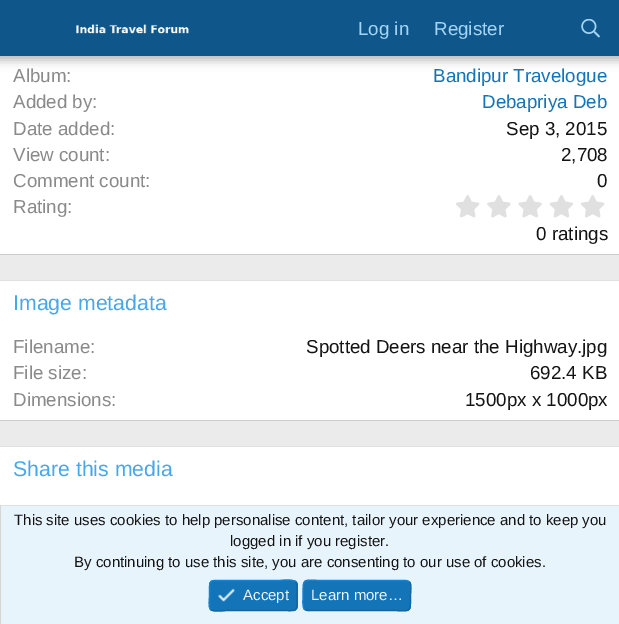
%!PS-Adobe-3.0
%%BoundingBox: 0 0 619 624
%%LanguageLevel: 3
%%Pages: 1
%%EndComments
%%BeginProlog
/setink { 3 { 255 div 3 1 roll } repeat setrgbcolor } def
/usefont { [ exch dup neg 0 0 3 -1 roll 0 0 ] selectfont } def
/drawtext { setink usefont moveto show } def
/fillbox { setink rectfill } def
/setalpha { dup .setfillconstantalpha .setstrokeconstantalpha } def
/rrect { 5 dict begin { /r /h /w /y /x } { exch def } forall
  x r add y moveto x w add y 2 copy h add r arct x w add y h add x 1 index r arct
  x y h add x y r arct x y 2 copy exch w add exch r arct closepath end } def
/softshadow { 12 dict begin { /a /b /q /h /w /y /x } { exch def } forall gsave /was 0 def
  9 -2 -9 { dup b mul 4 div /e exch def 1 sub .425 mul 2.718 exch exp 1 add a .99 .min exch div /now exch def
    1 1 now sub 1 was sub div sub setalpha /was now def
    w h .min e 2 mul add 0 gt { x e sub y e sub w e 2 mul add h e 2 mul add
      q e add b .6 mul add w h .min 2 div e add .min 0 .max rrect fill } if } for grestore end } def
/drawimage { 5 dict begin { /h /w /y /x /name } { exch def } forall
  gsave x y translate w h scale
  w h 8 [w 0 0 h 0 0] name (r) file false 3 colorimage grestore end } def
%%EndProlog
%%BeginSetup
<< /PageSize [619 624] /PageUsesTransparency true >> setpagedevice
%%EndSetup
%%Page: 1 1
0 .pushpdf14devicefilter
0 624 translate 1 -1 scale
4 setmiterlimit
0 0 619 624 235 235 235 fillbox
0 56 619 198 255 255 255 fillbox
0 0 0 setink
-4 -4 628 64 0 5 0.3 softshadow
0 0 619 56 15 87 138 fillbox
(assets/img1.rgb) 76 24 113 10 drawimage
(Log in) 358 35 /LiberationSans-Regular 18.75 163 212 245 drawtext
(Register) 434 35 /LiberationSans-Regular 18.75 163 212 245 drawtext
(assets/img2.rgb) 581 19 19 19 drawimage
0 254 619 1 204 204 204 fillbox
(Album:) 13 82 /LiberationSans-Regular 18.75 138 138 138 drawtext
(Bandipur Travelogue) 433 82 /LiberationSans-Regular 18.75 20 116 184 drawtext
(Added by:) 13 108 /LiberationSans-Regular 18.75 138 138 138 drawtext
(Debapriya Deb) 482 108 /LiberationSans-Regular 18.75 20 116 184 drawtext
(Date added:) 13 135 /LiberationSans-Regular 18.75 138 138 138 drawtext
(Sep 3, 2015) 506 135 /LiberationSans-Regular 18.75 20 20 20 drawtext
(View count:) 13 161 /LiberationSans-Regular 18.75 138 138 138 drawtext
(2,708) 561 161 /LiberationSans-Regular 18.75 20 20 20 drawtext
(Comment count:) 13 187 /LiberationSans-Regular 18.75 138 138 138 drawtext
(0) 597 187 /LiberationSans-Regular 18.75 20 20 20 drawtext
(Rating:) 13 213 /LiberationSans-Regular 18.75 138 138 138 drawtext
(assets/img3.rgb) 456 195 24 23 drawimage
(assets/img4.rgb) 487 195 24 23 drawimage
(assets/img5.rgb) 518 195 24 23 drawimage
(assets/img6.rgb) 549 195 24 23 drawimage
(assets/img3.rgb) 581 195 24 23 drawimage
(0 ratings) 536 240 /LiberationSans-Regular 18.75 20 20 20 drawtext
0 281 619 139 255 255 255 fillbox
0 280 619 1 224 224 224 fillbox
0 420 619 1 204 204 204 fillbox
(Image metadata) 13 310 /LiberationSans-Regular 21.25 71 167 235 drawtext
(Filename:) 13 353 /LiberationSans-Regular 18.75 138 138 138 drawtext
(Spotted Deers near the Highway.jpg) 306 353 /LiberationSans-Regular 18.75 20 20 20 drawtext
(File size:) 13 379 /LiberationSans-Regular 18.75 138 138 138 drawtext
(692.4 KB) 530 379 /LiberationSans-Regular 18.75 20 20 20 drawtext
(Dimensions:) 13 406 /LiberationSans-Regular 18.75 138 138 138 drawtext
(1500px x 1000px) 465 406 /LiberationSans-Regular 18.75 20 20 20 drawtext
0 447 619 58 255 255 255 fillbox
0 446 619 1 224 224 224 fillbox
(Share this media) 13 476 /LiberationSans-Regular 21.25 71 167 235 drawtext
1 506 618 118 232 244 252 fillbox
0 505 619 1 224 224 224 fillbox
0 505 1 119 214 214 214 fillbox
(This site uses cookies to help personalise content, tailor your experience and to keep you) 14 525 /LiberationSans-Regular 15 20 20 20 drawtext
(logged in if you register.) 230 546 /LiberationSans-Regular 15 20 20 20 drawtext
(By continuing to use this site, you are consenting to our use of cookies.) 74 567 /LiberationSans-Regular 15 20 20 20 drawtext
20 116 184 setink
209 580 89 31 5 rrect fill
18 101 161 setink
1.2 setlinewidth
295.5 582 moveto 298 584.5 297 592.5 297 595.5 curveto 297 613.5 298.5 610.5 279.5 610.5 curveto 227 610.5 lineto 225.5 610.5 214 612.5 210.5 609.5 curveto stroke
23 130 207 setink
210.5 609.5 moveto 208 606.5 209.5 599 209.5 595.5 curveto 209.5 578 208 580.5 227 580.5 curveto 279.5 580.5 lineto 280.5 580.5 292.5 578.5 295.5 582 curveto stroke
(assets/img7.rgb) 218 588 17 14 drawimage
(Accept) 243 600 /LiberationSans-Regular 15 232 244 252 drawtext
20 116 184 setink
303 580 108 31 5 rrect fill
18 101 161 setink
409.5 582 moveto 412 584.5 410.5 592.5 410.5 595.5 curveto 410.5 614.5 411.5 610.5 390 610.5 curveto 307.5 610.5 lineto 304.5 609.5 lineto stroke
23 130 207 setink
304.5 609.5 moveto 302 606.5 303 599 303 595.5 curveto 303 576.5 302.5 580.5 324 580.5 curveto 406 580.5 lineto 409.5 582 lineto stroke
(Learn more…) 311 600 /LiberationSans-Regular 15 232 244 252 drawtext
.poppdf14devicefilter showpage
%%EOF
